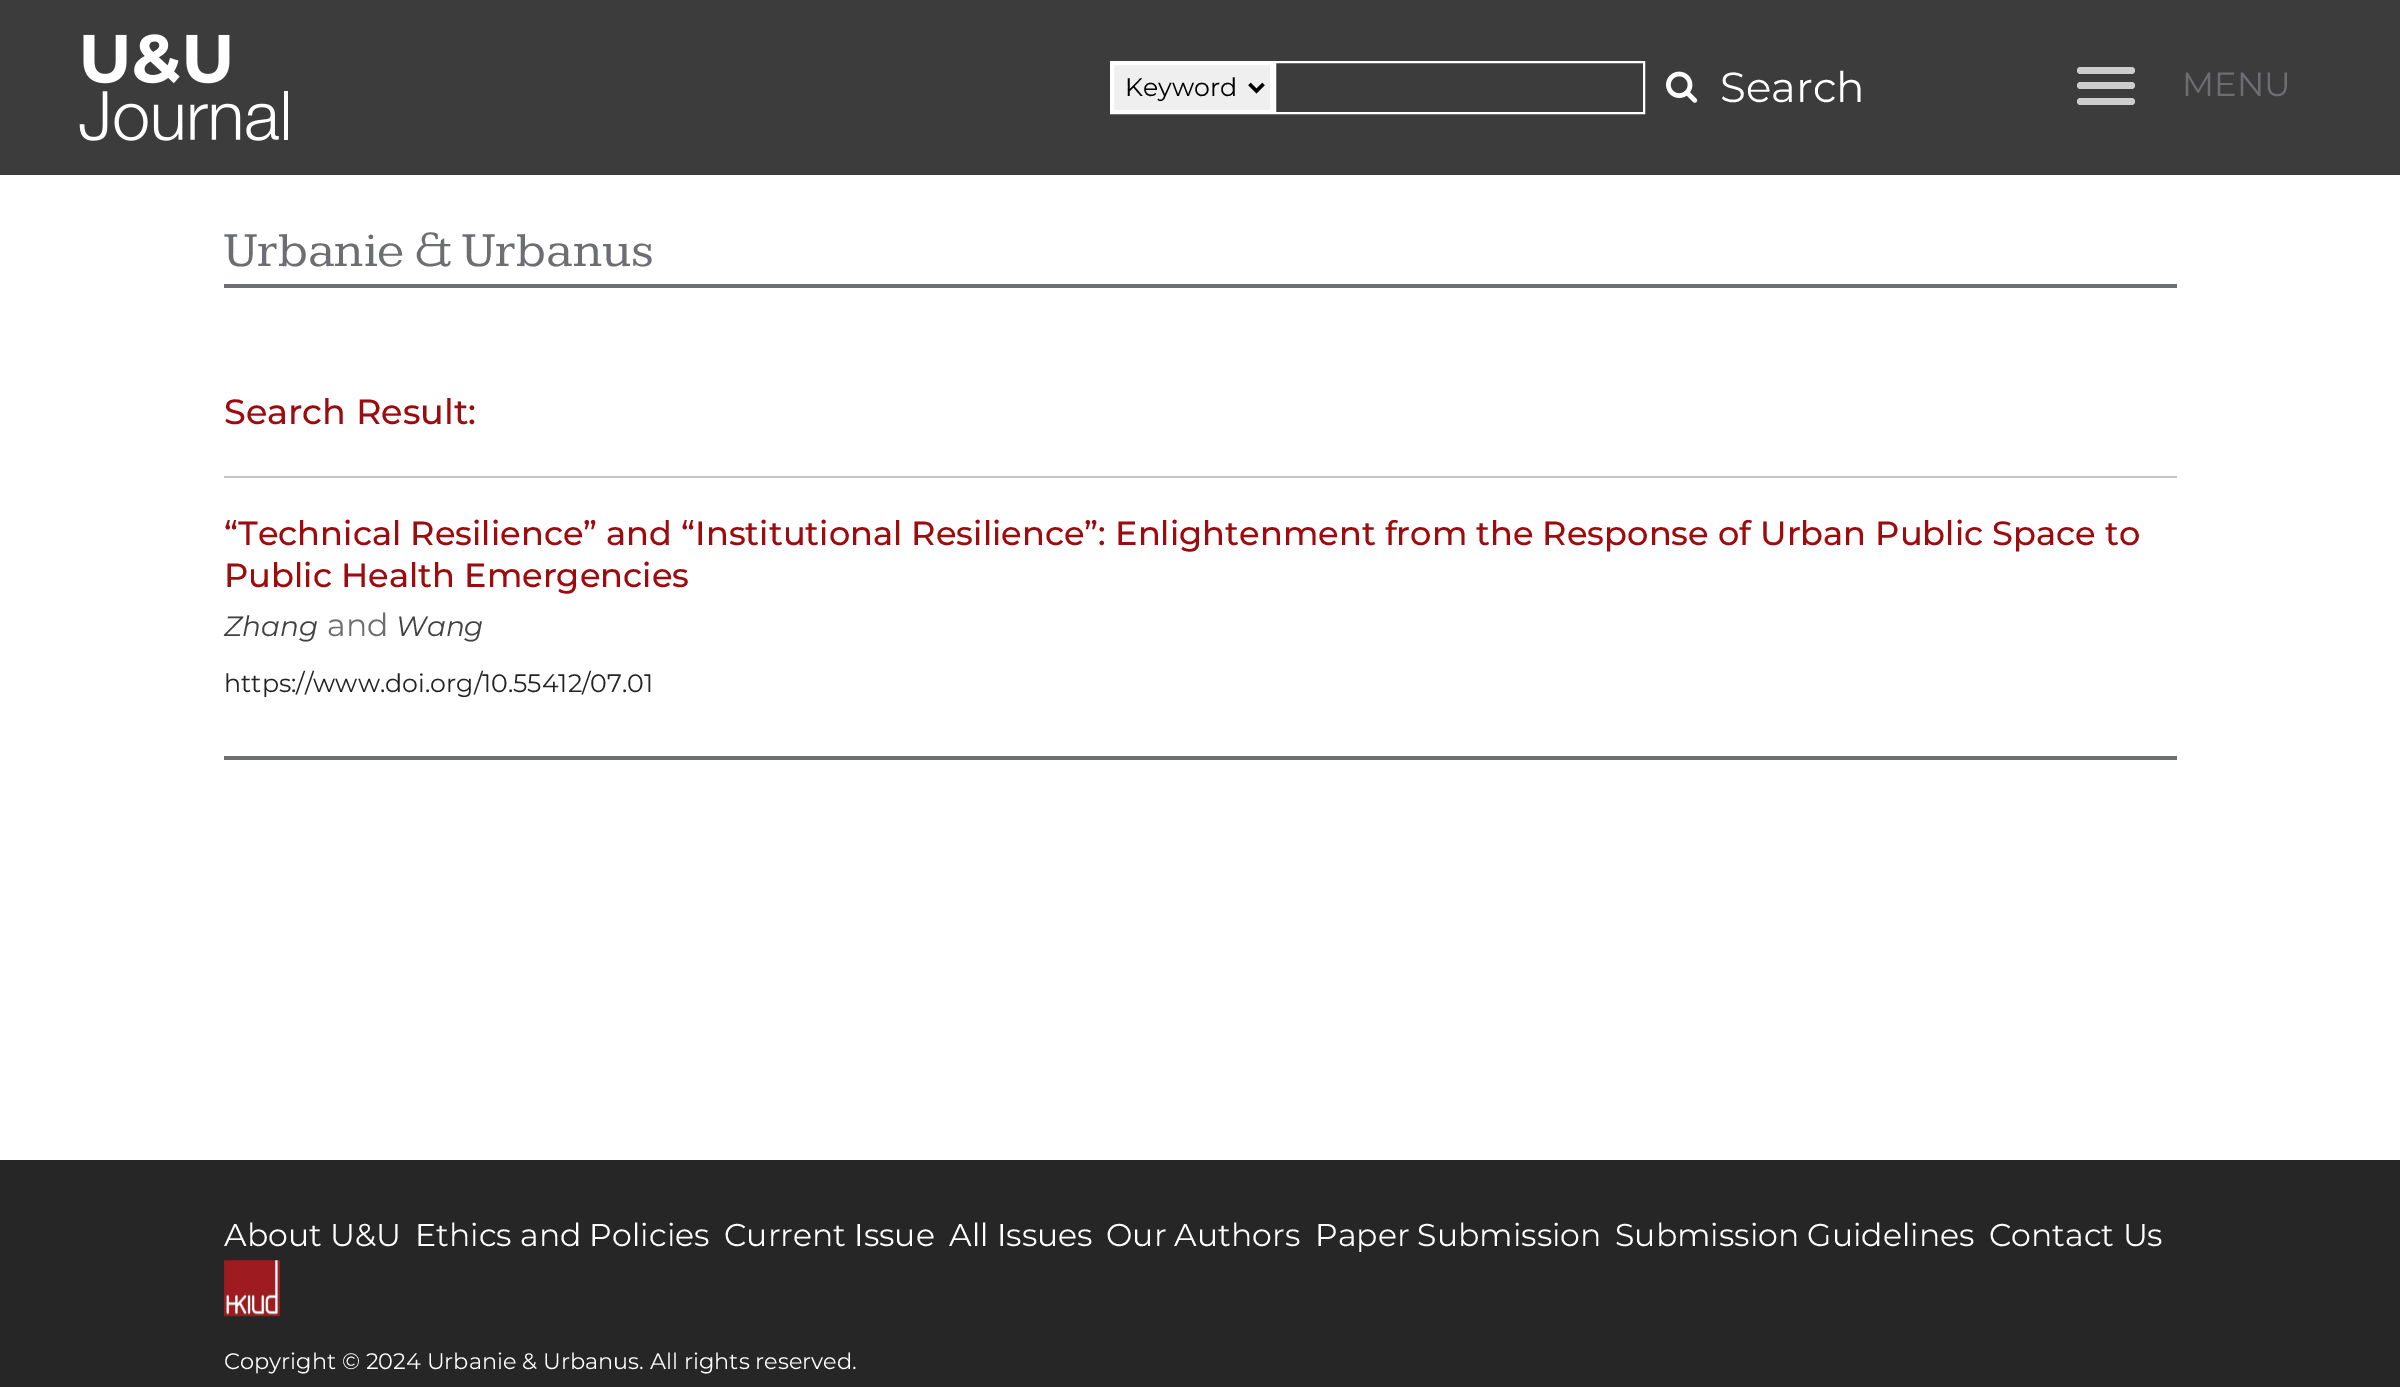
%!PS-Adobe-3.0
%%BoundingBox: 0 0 2400 1387
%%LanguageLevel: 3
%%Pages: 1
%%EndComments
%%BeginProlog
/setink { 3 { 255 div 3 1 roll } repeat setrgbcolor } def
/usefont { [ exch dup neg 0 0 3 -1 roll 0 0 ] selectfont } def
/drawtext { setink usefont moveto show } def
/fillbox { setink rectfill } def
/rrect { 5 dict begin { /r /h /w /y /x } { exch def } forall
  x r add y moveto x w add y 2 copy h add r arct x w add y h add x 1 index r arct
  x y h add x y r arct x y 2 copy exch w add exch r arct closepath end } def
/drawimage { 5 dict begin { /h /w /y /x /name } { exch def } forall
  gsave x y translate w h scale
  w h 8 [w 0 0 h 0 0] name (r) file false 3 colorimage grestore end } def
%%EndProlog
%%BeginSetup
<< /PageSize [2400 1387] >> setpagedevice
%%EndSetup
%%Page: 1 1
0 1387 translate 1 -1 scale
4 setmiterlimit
0 0 2400 1387 255 255 255 fillbox
0 0 2400 175 61 60 61 fillbox
(assets/img1.rgb) 79 34 209 107 drawimage
239 239 239 setink
1112 63 moveto 1272 63 lineto 1272 112 lineto 1112 112 lineto closepath gsave fill grestore
255 255 255 setink
4 setlinewidth
stroke
0 0 0 setink
3.5 setlinewidth
1249.5 84 moveto 1256.5 91 lineto 1263.5 84 lineto stroke
(Keyword) 1125 96 /Montserrat-Regular 25.25 0 0 0 drawtext
255 255 255 setink
2 setlinewidth
1275 62 369 51 rectstroke
(assets/img2.rgb) 1666 71 32 32 drawimage
(Search) 1720 102 /Montserrat-Regular 42 255 255 255 drawtext
205 205 205 setink
2077 67 58 7 3.5 rrect fill
2077 82 58 7 3.5 rrect fill
(MENU) 2182 96 /Montserrat-Regular 33.6 109 110 113 drawtext
205 205 205 setink
2077 98 58 7 3.5 rrect fill
224 284 1953 4 109 110 113 fillbox
(Urbanie & Urbanus) 224 266 /Kameron-Regular 50.5 109 110 113 drawtext
(Search Result:) 224 424 /Montserrat-Medium 35 158 11 15 drawtext
224 476 1953 2 197 197 198 fillbox
224 756 1953 4 109 110 113 fillbox
(“Technical Resilience” and “Institutional Resilience”: Enlightenment from the Response of Urban Public Space to) 224 545 /Montserrat-Medium 33.6 158 11 15 drawtext
(Public Health Emergencies) 224 587 /Montserrat-Medium 33.6 158 11 15 drawtext
(Zhang) 224 636 /Montserrat-Italic 28 65 64 66 drawtext
(and) 327 636 /Montserrat-Regular 31.5 109 110 113 drawtext
(Wang) 396 636 /Montserrat-Italic 28 65 64 66 drawtext
(https://www.doi.org/10.55412/07.01) 224 692 /Montserrat-Regular 25.25 35 35 35 drawtext
0 1160 2400 227 39 38 39 fillbox
(About U&U) 224 1246 /Montserrat-Regular 31.5 255 255 255 drawtext
(Ethics and Policies) 415 1246 /Montserrat-Regular 31.5 255 255 255 drawtext
(Current Issue) 724 1246 /Montserrat-Regular 31.5 255 255 255 drawtext
(All Issues) 949 1246 /Montserrat-Regular 31.5 255 255 255 drawtext
(Our Authors) 1106 1246 /Montserrat-Regular 31.5 255 255 255 drawtext
(Paper Submission) 1315 1246 /Montserrat-Regular 31.5 255 255 255 drawtext
(Submission Guidelines) 1615 1246 /Montserrat-Regular 31.5 255 255 255 drawtext
(Contact Us) 1989 1246 /Montserrat-Regular 31.5 255 255 255 drawtext
(assets/img3.rgb) 224 1260 56 57 drawimage
(Copyright © 2024 Urbanie & Urbanus. All rights reserved.) 224 1369 /Montserrat-Regular 22.4 255 255 255 drawtext
showpage
%%EOF
